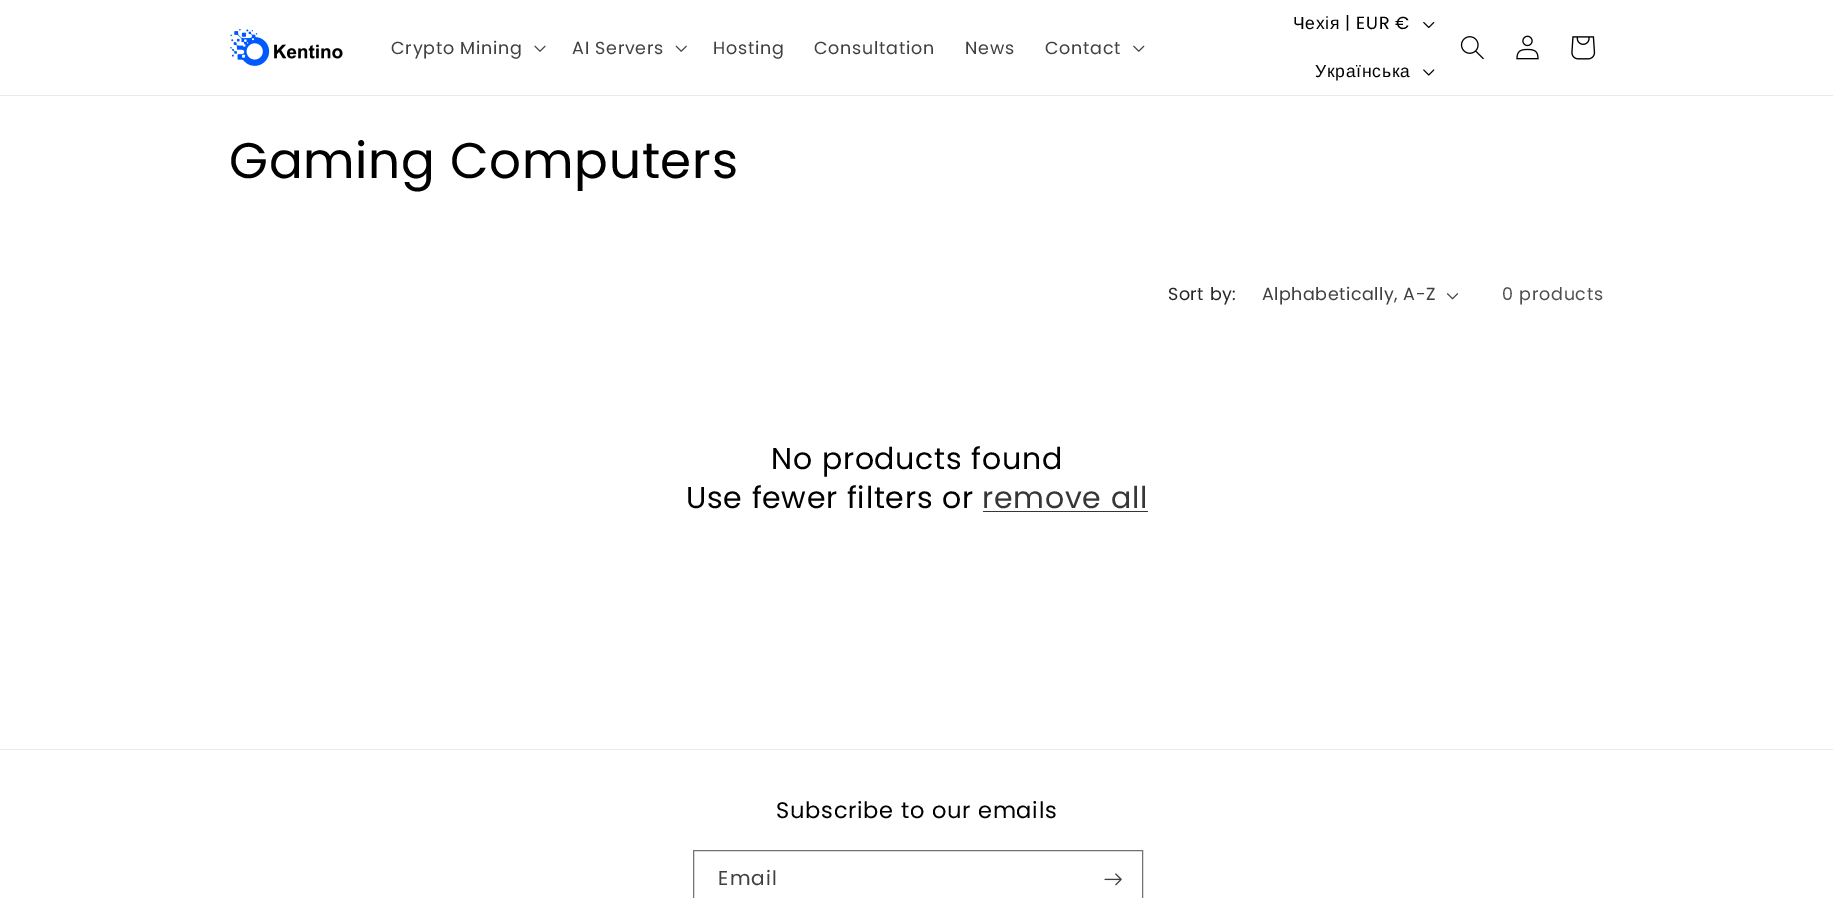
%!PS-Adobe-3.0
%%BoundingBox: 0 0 1833 898
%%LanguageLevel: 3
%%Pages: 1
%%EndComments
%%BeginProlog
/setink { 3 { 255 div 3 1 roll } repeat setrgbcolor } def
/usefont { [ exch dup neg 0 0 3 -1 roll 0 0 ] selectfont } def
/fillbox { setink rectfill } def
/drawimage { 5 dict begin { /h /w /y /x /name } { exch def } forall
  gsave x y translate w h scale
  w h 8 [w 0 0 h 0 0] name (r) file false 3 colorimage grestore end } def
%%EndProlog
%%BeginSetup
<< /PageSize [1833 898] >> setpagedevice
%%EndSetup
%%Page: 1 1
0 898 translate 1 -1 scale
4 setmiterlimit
0 0 1833 898 255 255 255 fillbox
0 95 1833 1 235 235 235 fillbox
(assets/img1.rgb) 230 29 113 37 drawimage
/Poppins-Regular 17.5 usefont
64 64 64 setink
391 54 moveto 0.75 0 (Crypto Mining) ashow
(assets/img2.rgb) 534 45 12 7 drawimage
572 54 moveto 0.75 0 (AI Servers) ashow
(assets/img3.rgb) 675 45 12 7 drawimage
713 54 moveto 0.75 0 (Hosting) ashow
814 54 moveto 0.75 0 (Consultation) ashow
965 54 moveto 0.75 0 (News) ashow
1045 54 moveto 0.75 0 (Contact) ashow
(assets/img4.rgb) 1133 45 12 7 drawimage
/LiberationSans-Regular 17.5 usefont
0 0 0 setink
1293 29 moveto 0.75 0 (Чехія) ashow
/Poppins-Regular 17.5 usefont
1345 29 moveto 0.75 0 (| EUR €) ashow
(assets/img5.rgb) 1423 21 12 8 drawimage
/LiberationSans-Regular 17.5 usefont
1315 77 moveto 0.75 0 (Українська) ashow
(assets/img6.rgb) 1423 69 12 7 drawimage
(assets/img7.rgb) 1460 36 24 24 drawimage
(assets/img8.rgb) 1516 35 23 25 drawimage
(assets/img9.rgb) 1571 36 25 24 drawimage
/Poppins-Regular 50 usefont
229 178 moveto 0.75 0 (Gaming Computers) ashow
/Poppins-Regular 17.5 usefont
38 38 38 setink
1168 300 moveto 0.5 0 (Sort by:) ashow
64 64 64 setink
1262 300 moveto 0.5 0 (Alphabetically, A-Z) ashow
(assets/img10.rgb) 1446 293 13 7 drawimage
77 77 77 setink
1502 300 moveto 0.75 0 (0 products) ashow
/Poppins-Regular 30 usefont
0 0 0 setink
771 469 moveto 0.75 0 (No products found) ashow
686 508 moveto 0.75 0 (Use fewer filters or) ashow
54 54 54 setink
982 508 moveto 0.75 0 (remove all) ashow
983 511 165 1 54 54 54 fillbox
0 749 1833 1 235 235 235 fillbox
/Poppins-Regular 22.5 usefont
0 0 0 setink
776 818 moveto 0.75 0 (Subscribe to our emails) ashow
115 115 115 setink
693.5 850.5 449 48 rectstroke
/Poppins-Regular 20 usefont
64 64 64 setink
718 885 moveto 1.25 0 (Email) ashow
(assets/img11.rgb) 1104 873 18 13 drawimage
showpage
%%EOF
